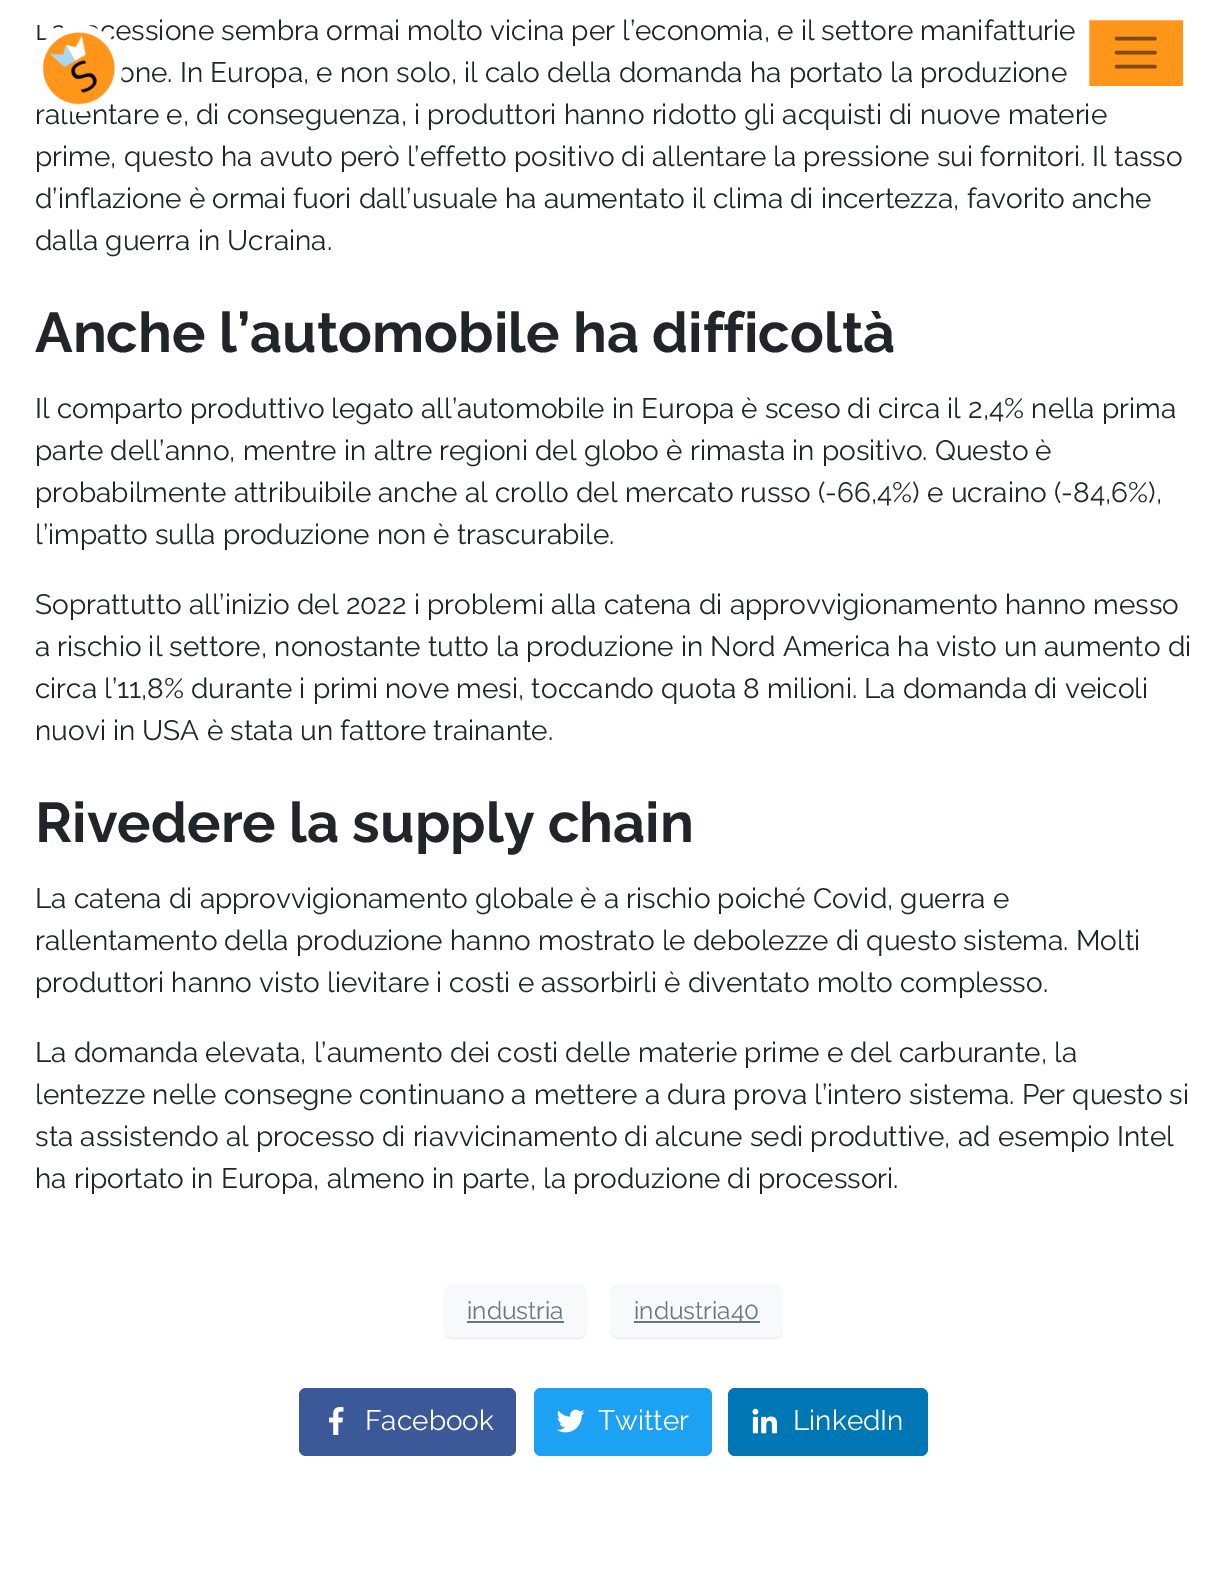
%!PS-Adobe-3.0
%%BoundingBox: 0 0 1226 1571
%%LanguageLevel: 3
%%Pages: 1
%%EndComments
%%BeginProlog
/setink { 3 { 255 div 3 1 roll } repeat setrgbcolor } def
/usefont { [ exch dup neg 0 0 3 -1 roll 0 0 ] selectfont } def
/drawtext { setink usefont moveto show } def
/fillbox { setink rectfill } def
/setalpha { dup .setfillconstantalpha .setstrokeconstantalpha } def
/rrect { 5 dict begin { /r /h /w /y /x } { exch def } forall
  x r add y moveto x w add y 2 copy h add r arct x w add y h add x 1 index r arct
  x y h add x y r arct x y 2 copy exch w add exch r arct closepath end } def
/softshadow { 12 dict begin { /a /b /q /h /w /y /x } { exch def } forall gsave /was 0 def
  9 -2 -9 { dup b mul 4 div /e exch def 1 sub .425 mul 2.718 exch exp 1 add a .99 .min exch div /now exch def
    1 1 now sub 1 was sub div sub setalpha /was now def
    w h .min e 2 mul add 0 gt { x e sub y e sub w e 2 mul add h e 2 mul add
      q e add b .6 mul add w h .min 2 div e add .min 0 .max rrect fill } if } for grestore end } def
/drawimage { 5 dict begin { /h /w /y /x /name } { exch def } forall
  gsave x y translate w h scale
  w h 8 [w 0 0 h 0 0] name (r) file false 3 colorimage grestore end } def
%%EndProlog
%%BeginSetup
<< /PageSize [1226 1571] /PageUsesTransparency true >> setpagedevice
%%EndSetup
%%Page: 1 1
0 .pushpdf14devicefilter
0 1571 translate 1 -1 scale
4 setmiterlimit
0 0 1226 1571 255 255 255 fillbox
(essione sembra ormai molto vicina per l’economia, e il settore manifatturie) 115 40 /Raleway-Regular 28 33 37 41 drawtext
(one. In Europa, e non solo, il calo della domanda ha portato la produzione) 118 82 /Raleway-Regular 28 33 37 41 drawtext
(rallentare e, di conseguenza, i produttori hanno ridotto gli acquisti di nuove materie) 35 124 /Raleway-Regular 28 33 37 41 drawtext
(assets/img1.rgb) 36 25 87 87 drawimage
255 150 25 setink
1084.5 15.5 103 75 2.5 rrect gsave fill grestore
255 255 255 setink
9 setlinewidth
stroke
128 75 13 setink
3.5 setlinewidth
1 setlinecap
1116.5 38.5 moveto 1155 38.5 lineto 1116.5 52.5 moveto 1155 52.5 lineto 1116.5 66.5 moveto 1155 66.5 lineto stroke
(prime, questo ha avuto però l’effetto positivo di allentare la pressione sui fornitori. Il tasso) 35 166 /Raleway-Regular 28 33 37 41 drawtext
(d’inflazione è ormai fuori dall’usuale ha aumentato il clima di incertezza, favorito anche) 35 208 /Raleway-Regular 28 33 37 41 drawtext
(dalla guerra in Ucraina.) 35 250 /Raleway-Regular 28 33 37 41 drawtext
(Anche l’automobile ha difficoltà) 35 352 /Raleway-Bold 56 33 37 41 drawtext
(Il comparto produttivo legato all’automobile in Europa è sceso di circa il 2,4% nella prima) 35 418 /Raleway-Regular 28 33 37 41 drawtext
(parte dell’anno, mentre in altre regioni del globo è rimasta in positivo. Questo è) 35 460 /Raleway-Regular 28 33 37 41 drawtext
(probabilmente attribuibile anche al crollo del mercato russo \(-66,4%\) e ucraino \(-84,6%\),) 35 502 /Raleway-Regular 28 33 37 41 drawtext
(l’impatto sulla produzione non è trascurabile.) 35 544 /Raleway-Regular 28 33 37 41 drawtext
(Soprattutto all’inizio del 2022 i problemi alla catena di approvvigionamento hanno messo) 35 614 /Raleway-Regular 28 33 37 41 drawtext
(a rischio il settore, nonostante tutto la produzione in Nord America ha visto un aumento di) 35 656 /Raleway-Regular 28 33 37 41 drawtext
(circa l’11,8% durante i primi nove mesi, toccando quota 8 milioni. La domanda di veicoli) 35 698 /Raleway-Regular 28 33 37 41 drawtext
(nuovi in USA è stata un fattore trainante.) 35 740 /Raleway-Regular 28 33 37 41 drawtext
(Rivedere la supply chain) 35 842 /Raleway-Bold 56 33 37 41 drawtext
(La catena di approvvigionamento globale è a rischio poiché Covid, guerra e) 35 908 /Raleway-Regular 28 33 37 41 drawtext
(rallentamento della produzione hanno mostrato le debolezze di questo sistema. Molti) 35 950 /Raleway-Regular 28 33 37 41 drawtext
(produttori hanno visto lievitare i costi e assorbirli è diventato molto complesso.) 35 992 /Raleway-Regular 28 33 37 41 drawtext
(La domanda elevata, l’aumento dei costi delle materie prime e del carburante, la) 35 1062 /Raleway-Regular 28 33 37 41 drawtext
(lentezze nelle consegne continuano a mettere a dura prova l’intero sistema. Per questo si) 35 1104 /Raleway-Regular 28 33 37 41 drawtext
(sta assistendo al processo di riavvicinamento di alcune sedi produttive, ad esempio Intel) 35 1146 /Raleway-Regular 28 33 37 41 drawtext
(ha riportato in Europa, almeno in parte, la produzione di processori.) 35 1188 /Raleway-Regular 28 33 37 41 drawtext
0 0 0 setink
445 1286 141 53 7 1 0.07 softshadow
248 249 250 setink
446 1286 139 50 6 rrect gsave fill grestore
2 setlinewidth
0 setlinecap
stroke
(industria) 467 1319 /Raleway-Regular 24.5 108 117 125 drawtext
467 1321 97 2 108 117 125 fillbox
0 0 0 setink
611 1286 171 53 7 1 0.07 softshadow
248 249 250 setink
612 1286 169 50 6 rrect gsave fill grestore
stroke
634 1321 126 2 108 117 125 fillbox
(industria40) 634 1319 /Raleway-Regular 24.5 108 117 125 drawtext
59 89 152 setink
299 1388 217 68 7 rrect fill
(assets/img2.rgb) 329 1407 15 28 drawimage
(Facebook) 365 1430 /Raleway-Regular 28 255 255 255 drawtext
29 161 242 setink
534 1388 178 68 7 rrect fill
(assets/img3.rgb) 556 1409 29 24 drawimage
(Twitter) 598 1430 /Raleway-Regular 28 255 255 255 drawtext
0 119 181 setink
728 1388 200 68 7 rrect fill
(assets/img4.rgb) 752 1408 25 26 drawimage
(LinkedIn) 793 1430 /Raleway-Regular 28 255 255 255 drawtext
.poppdf14devicefilter showpage
%%EOF
